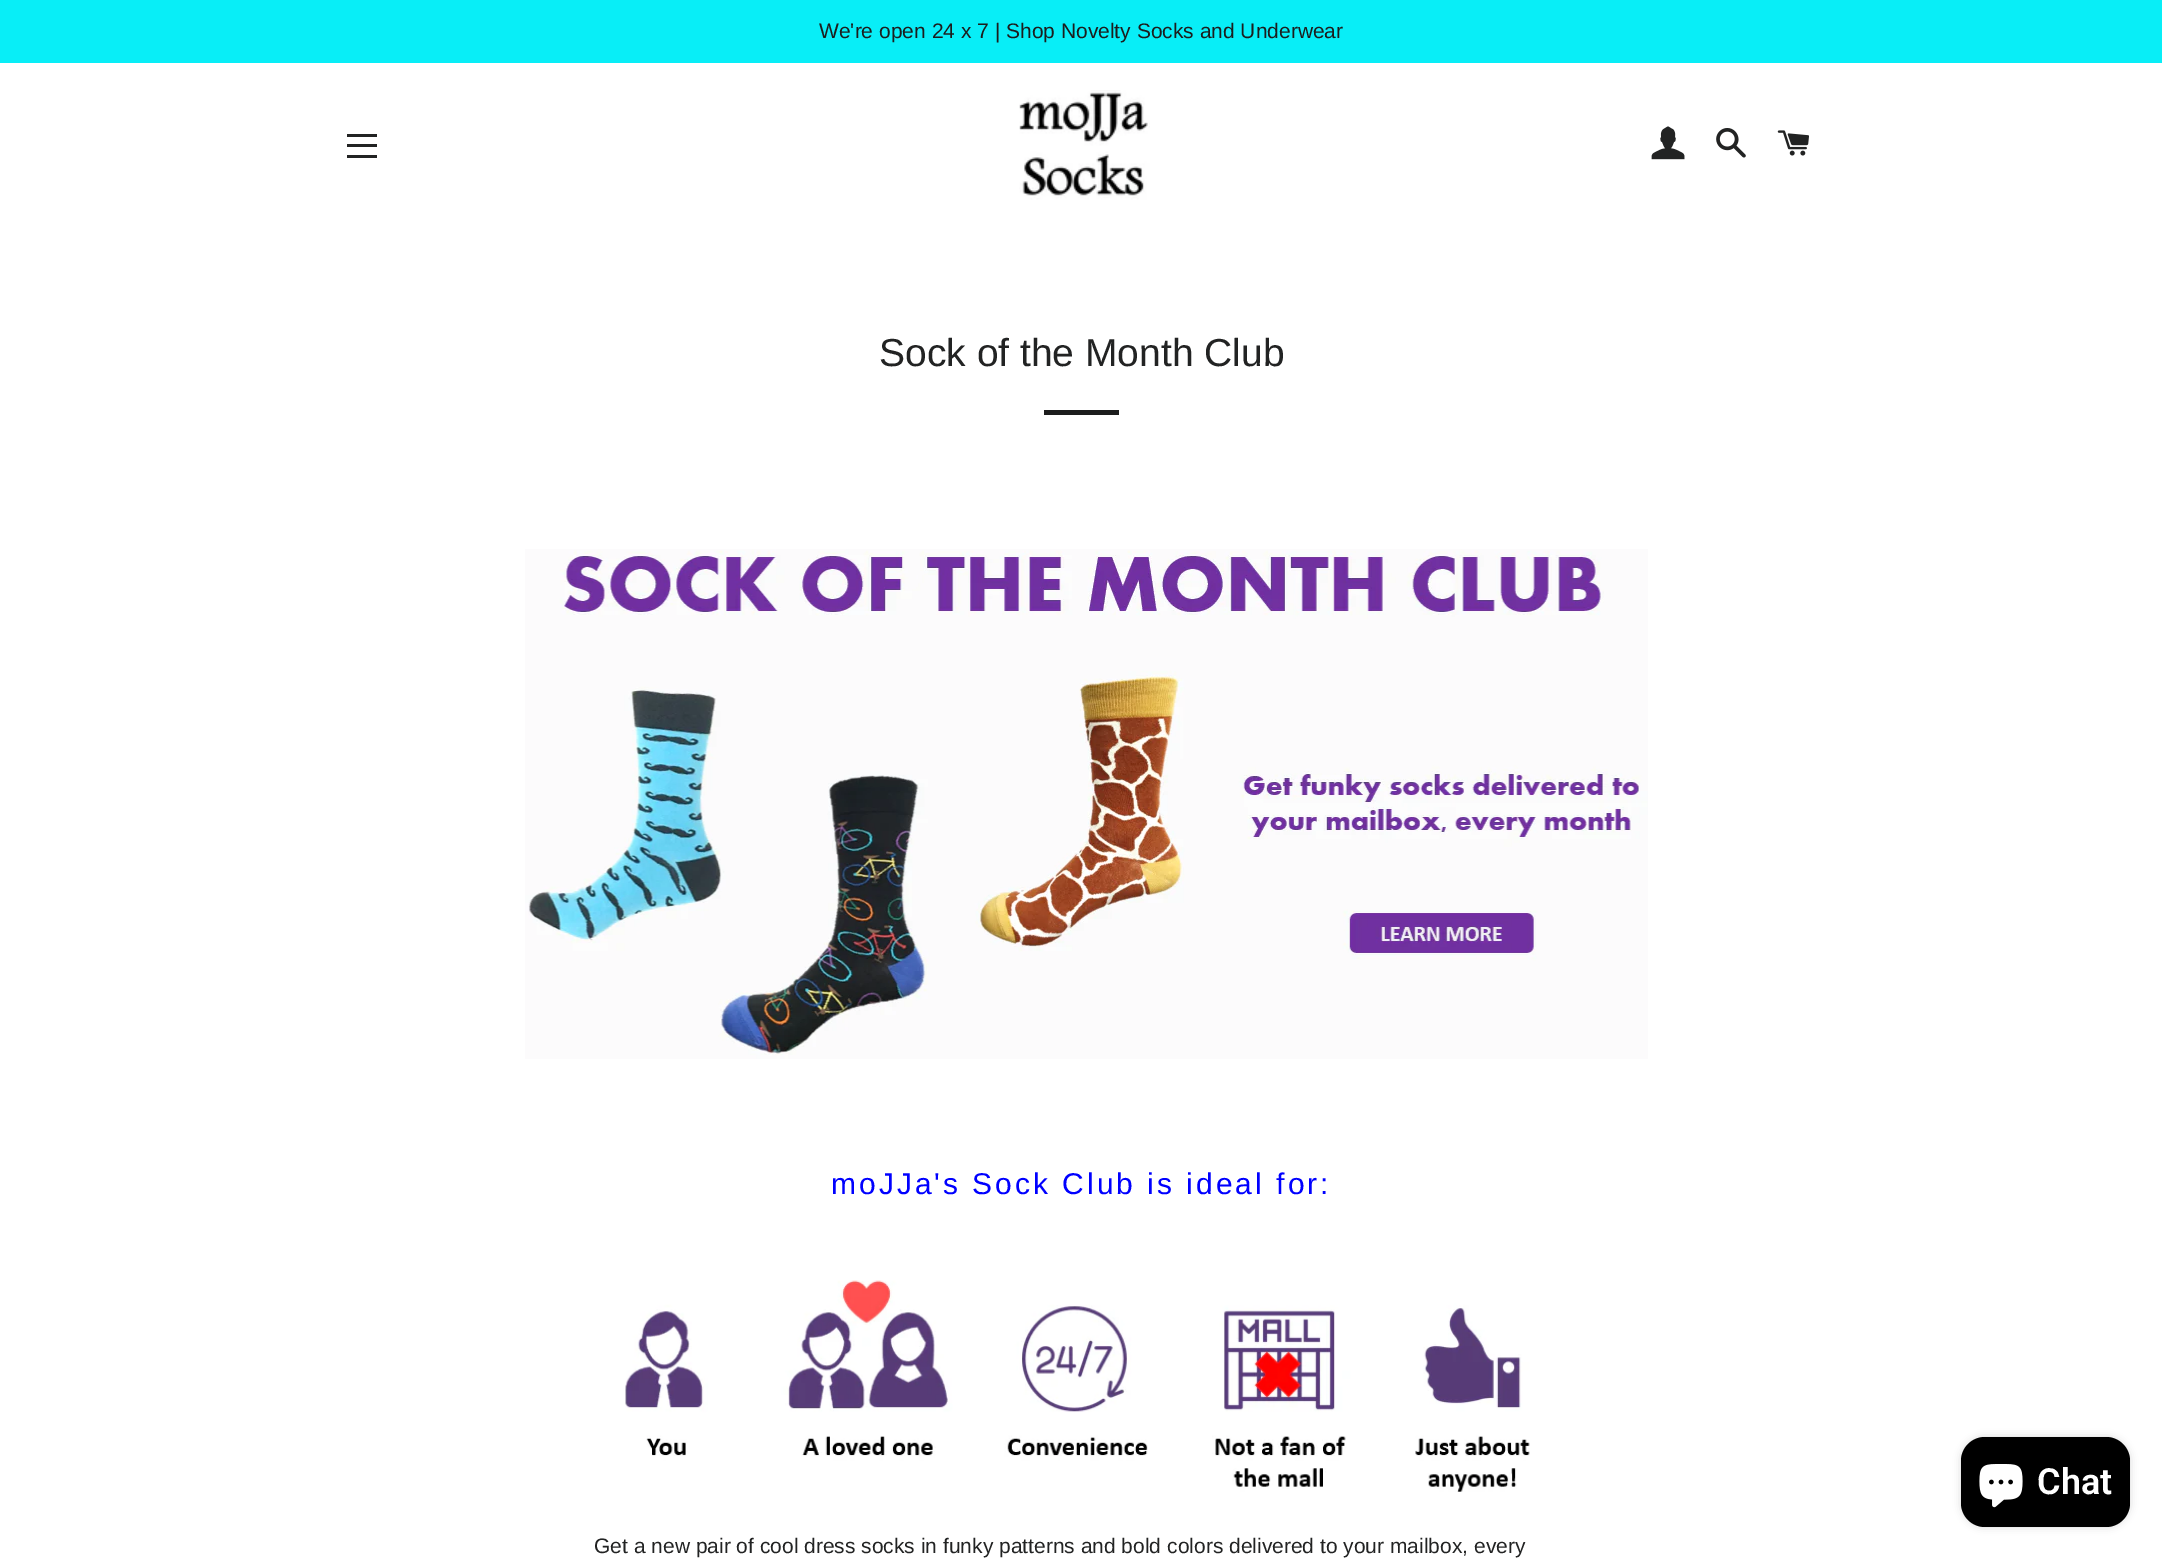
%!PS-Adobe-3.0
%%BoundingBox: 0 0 2162 1558
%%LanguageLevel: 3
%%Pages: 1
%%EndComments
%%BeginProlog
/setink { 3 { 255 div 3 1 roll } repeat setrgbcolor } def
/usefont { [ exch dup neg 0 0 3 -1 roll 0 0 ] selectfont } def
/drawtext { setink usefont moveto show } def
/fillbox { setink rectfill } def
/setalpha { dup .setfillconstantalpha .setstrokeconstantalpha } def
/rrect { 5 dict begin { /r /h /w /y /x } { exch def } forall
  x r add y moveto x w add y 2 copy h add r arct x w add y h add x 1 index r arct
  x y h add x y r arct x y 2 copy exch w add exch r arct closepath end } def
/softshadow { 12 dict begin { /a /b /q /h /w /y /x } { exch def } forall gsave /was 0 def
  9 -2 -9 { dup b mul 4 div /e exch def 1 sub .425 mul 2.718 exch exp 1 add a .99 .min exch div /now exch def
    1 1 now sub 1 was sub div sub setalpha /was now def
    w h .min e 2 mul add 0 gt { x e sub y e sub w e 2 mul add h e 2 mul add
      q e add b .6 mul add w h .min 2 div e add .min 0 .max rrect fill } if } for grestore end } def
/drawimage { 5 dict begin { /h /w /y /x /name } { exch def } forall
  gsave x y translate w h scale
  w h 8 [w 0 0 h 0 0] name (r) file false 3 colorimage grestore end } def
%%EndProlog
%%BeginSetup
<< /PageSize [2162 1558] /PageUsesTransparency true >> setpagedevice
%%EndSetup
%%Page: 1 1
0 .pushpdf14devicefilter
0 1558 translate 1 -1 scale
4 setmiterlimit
0 0 2162 1558 255 255 255 fillbox
0 0 2162 63 8 238 247 fillbox
(We're open 24 x 7 | Shop Novelty Socks and Underwear) 819 38 /LiberationSans-Regular 21 28 29 29 drawtext
347 134 30 3 34 35 35 fillbox
347 144 30 3 34 35 35 fillbox
347 155 30 3 34 35 35 fillbox
(assets/img1.rgb) 1019 90 131 110 drawimage
(assets/img2.rgb) 1651 126 34 34 drawimage
(assets/img3.rgb) 1716 128 30 30 drawimage
(assets/img4.rgb) 1777 130 32 26 drawimage
(Sock of the Month Club) 879 366 /LiberationSans-Regular 39 34 35 35 drawtext
1044 410 75 5 28 29 29 fillbox
(assets/img5.rgb) 525 549 1123 510 drawimage
/LiberationSans-Regular 30 usefont
0 0 255 setink
831 1194 moveto 3 0 (moJJa's Sock Club is ideal for:) ashow
(assets/img6.rgb) 625 1280 905 212 drawimage
(Get a new pair of cool dress socks in funky patterns and bold colors delivered to your mailbox, every) 594 1553 /LiberationSans-Regular 21 34 35 35 drawtext
0 0 0 setink
1961 1437 169 90 24 4 0.15 softshadow
1961 1437 169 90 24 rrect fill
(assets/img7.rgb) 1979 1464 44 44 drawimage
(Chat) 2037 1494 /Roboto-SemiBold 36 255 255 255 drawtext
.poppdf14devicefilter showpage
%%EOF
